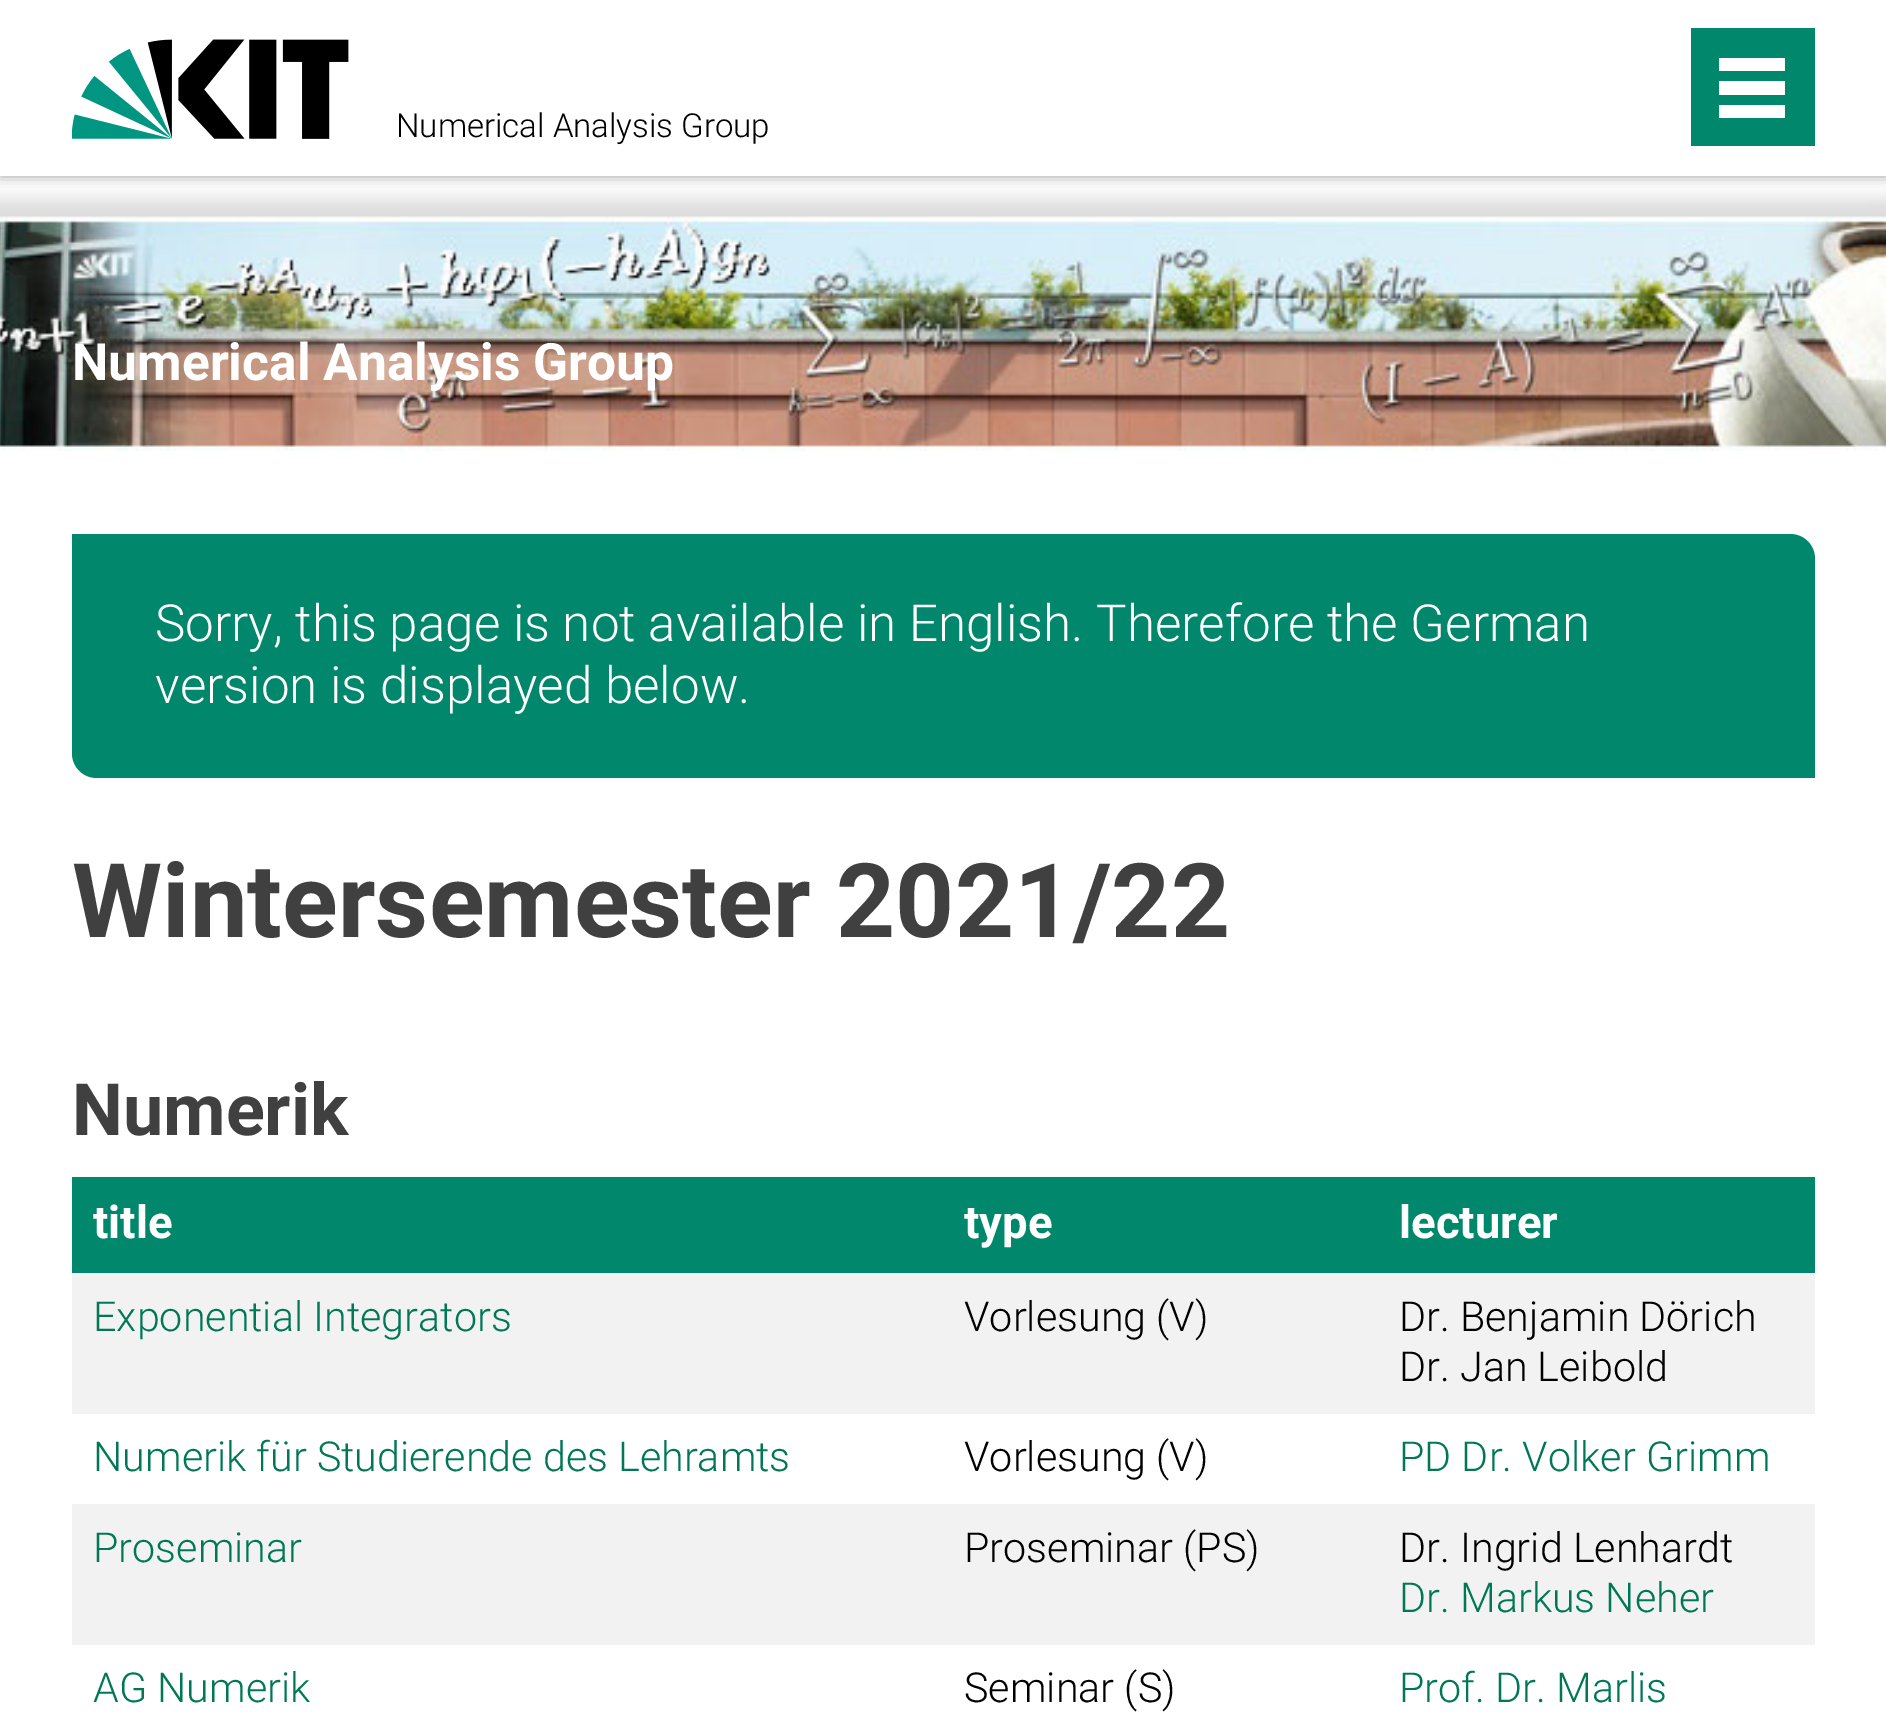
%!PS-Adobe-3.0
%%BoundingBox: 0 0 1886 1720
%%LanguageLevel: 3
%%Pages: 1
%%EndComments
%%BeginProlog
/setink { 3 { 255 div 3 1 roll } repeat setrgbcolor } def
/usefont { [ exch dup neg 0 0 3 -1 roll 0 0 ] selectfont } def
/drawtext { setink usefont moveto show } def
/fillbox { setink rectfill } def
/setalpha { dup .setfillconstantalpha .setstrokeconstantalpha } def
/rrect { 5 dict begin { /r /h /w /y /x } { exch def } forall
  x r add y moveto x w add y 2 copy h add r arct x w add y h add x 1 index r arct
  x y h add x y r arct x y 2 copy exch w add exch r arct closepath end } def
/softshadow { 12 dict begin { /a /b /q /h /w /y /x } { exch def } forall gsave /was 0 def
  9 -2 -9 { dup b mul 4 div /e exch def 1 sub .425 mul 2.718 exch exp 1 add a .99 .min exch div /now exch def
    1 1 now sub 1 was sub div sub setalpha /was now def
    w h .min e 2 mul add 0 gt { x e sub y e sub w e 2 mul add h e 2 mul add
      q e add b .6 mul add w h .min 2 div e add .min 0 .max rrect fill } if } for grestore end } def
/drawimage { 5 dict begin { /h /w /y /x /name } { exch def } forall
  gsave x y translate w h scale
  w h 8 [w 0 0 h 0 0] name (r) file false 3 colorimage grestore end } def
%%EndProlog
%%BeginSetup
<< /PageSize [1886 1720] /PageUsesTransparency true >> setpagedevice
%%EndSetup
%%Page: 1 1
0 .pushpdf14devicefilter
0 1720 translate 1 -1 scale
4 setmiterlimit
0 0 1886 1720 255 255 255 fillbox
(assets/img2.rgb) 0 188 1886 263 drawimage
gsave
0 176 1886 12 rectclip
64 64 64 setink
0 0 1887 176 0 7 0.5 softshadow
grestore
(assets/img1.rgb) 72 39 277 100 drawimage
(Numerical Analysis Group) 396 137 /Roboto-Light 33 0 0 0 drawtext
1691 28 124 118 0 135 108 fillbox
1719 105 66 13 255 255 255 fillbox
1719 81 66 14 255 255 255 fillbox
1719 58 66 13 255 255 255 fillbox
(Numerical Analysis Group) 72 380 /Roboto-Bold 51.5 255 255 255 drawtext
0 135 108 setink
72 534 moveto 1790 534 lineto 1804 534 1815 545 1815 559 curveto 1815 778 lineto 97 778 lineto 83 778 72 767 72 753 curveto closepath fill
(Sorry, this page is not available in English. Therefore the German) 155 641 /Roboto-Light 51.15 255 255 255 drawtext
(version is displayed below.) 155 703 /Roboto-Light 51.15 255 255 255 drawtext
(Wintersemester 2021/22) 72 937 /Roboto-Bold 103.1 64 64 64 drawtext
(Numerik) 72 1135 /Roboto-Bold 72 64 64 64 drawtext
72 1177 1743 96 0 135 108 fillbox
(title) 93 1238 /Roboto-Bold 45.5 255 255 255 drawtext
(type) 964 1238 /Roboto-Bold 45.5 255 255 255 drawtext
(lecturer) 1399 1238 /Roboto-Bold 45.5 255 255 255 drawtext
72 1273 1743 141 242 242 242 fillbox
(Exponential Integrators) 93 1331 /Roboto-Light 41.25 0 119 85 drawtext
(Vorlesung \(V\)) 964 1331 /Roboto-Light 41.25 0 0 0 drawtext
(Dr. Benjamin Dörich) 1399 1331 /Roboto-Light 41.25 0 0 0 drawtext
(Dr. Jan Leibold) 1399 1381 /Roboto-Light 41.25 0 0 0 drawtext
(Numerik für Studierende des Lehramts) 93 1471 /Roboto-Light 41.25 0 119 85 drawtext
(Vorlesung \(V\)) 964 1471 /Roboto-Light 41.25 0 0 0 drawtext
(PD Dr. Volker Grimm) 1399 1471 /Roboto-Light 41.25 0 119 85 drawtext
72 1504 1743 141 242 242 242 fillbox
(Proseminar) 93 1562 /Roboto-Light 41.25 0 119 85 drawtext
(Proseminar \(PS\)) 964 1562 /Roboto-Light 41.25 0 0 0 drawtext
(Dr. Ingrid Lenhardt) 1399 1562 /Roboto-Light 41.25 0 0 0 drawtext
(Dr. Markus Neher) 1399 1612 /Roboto-Light 41.25 0 119 85 drawtext
(AG Numerik) 93 1702 /Roboto-Light 41.25 0 119 85 drawtext
(Seminar \(S\)) 964 1702 /Roboto-Light 41.25 0 0 0 drawtext
(Prof. Dr. Marlis) 1399 1702 /Roboto-Light 41.25 0 119 85 drawtext
.poppdf14devicefilter showpage
%%EOF
